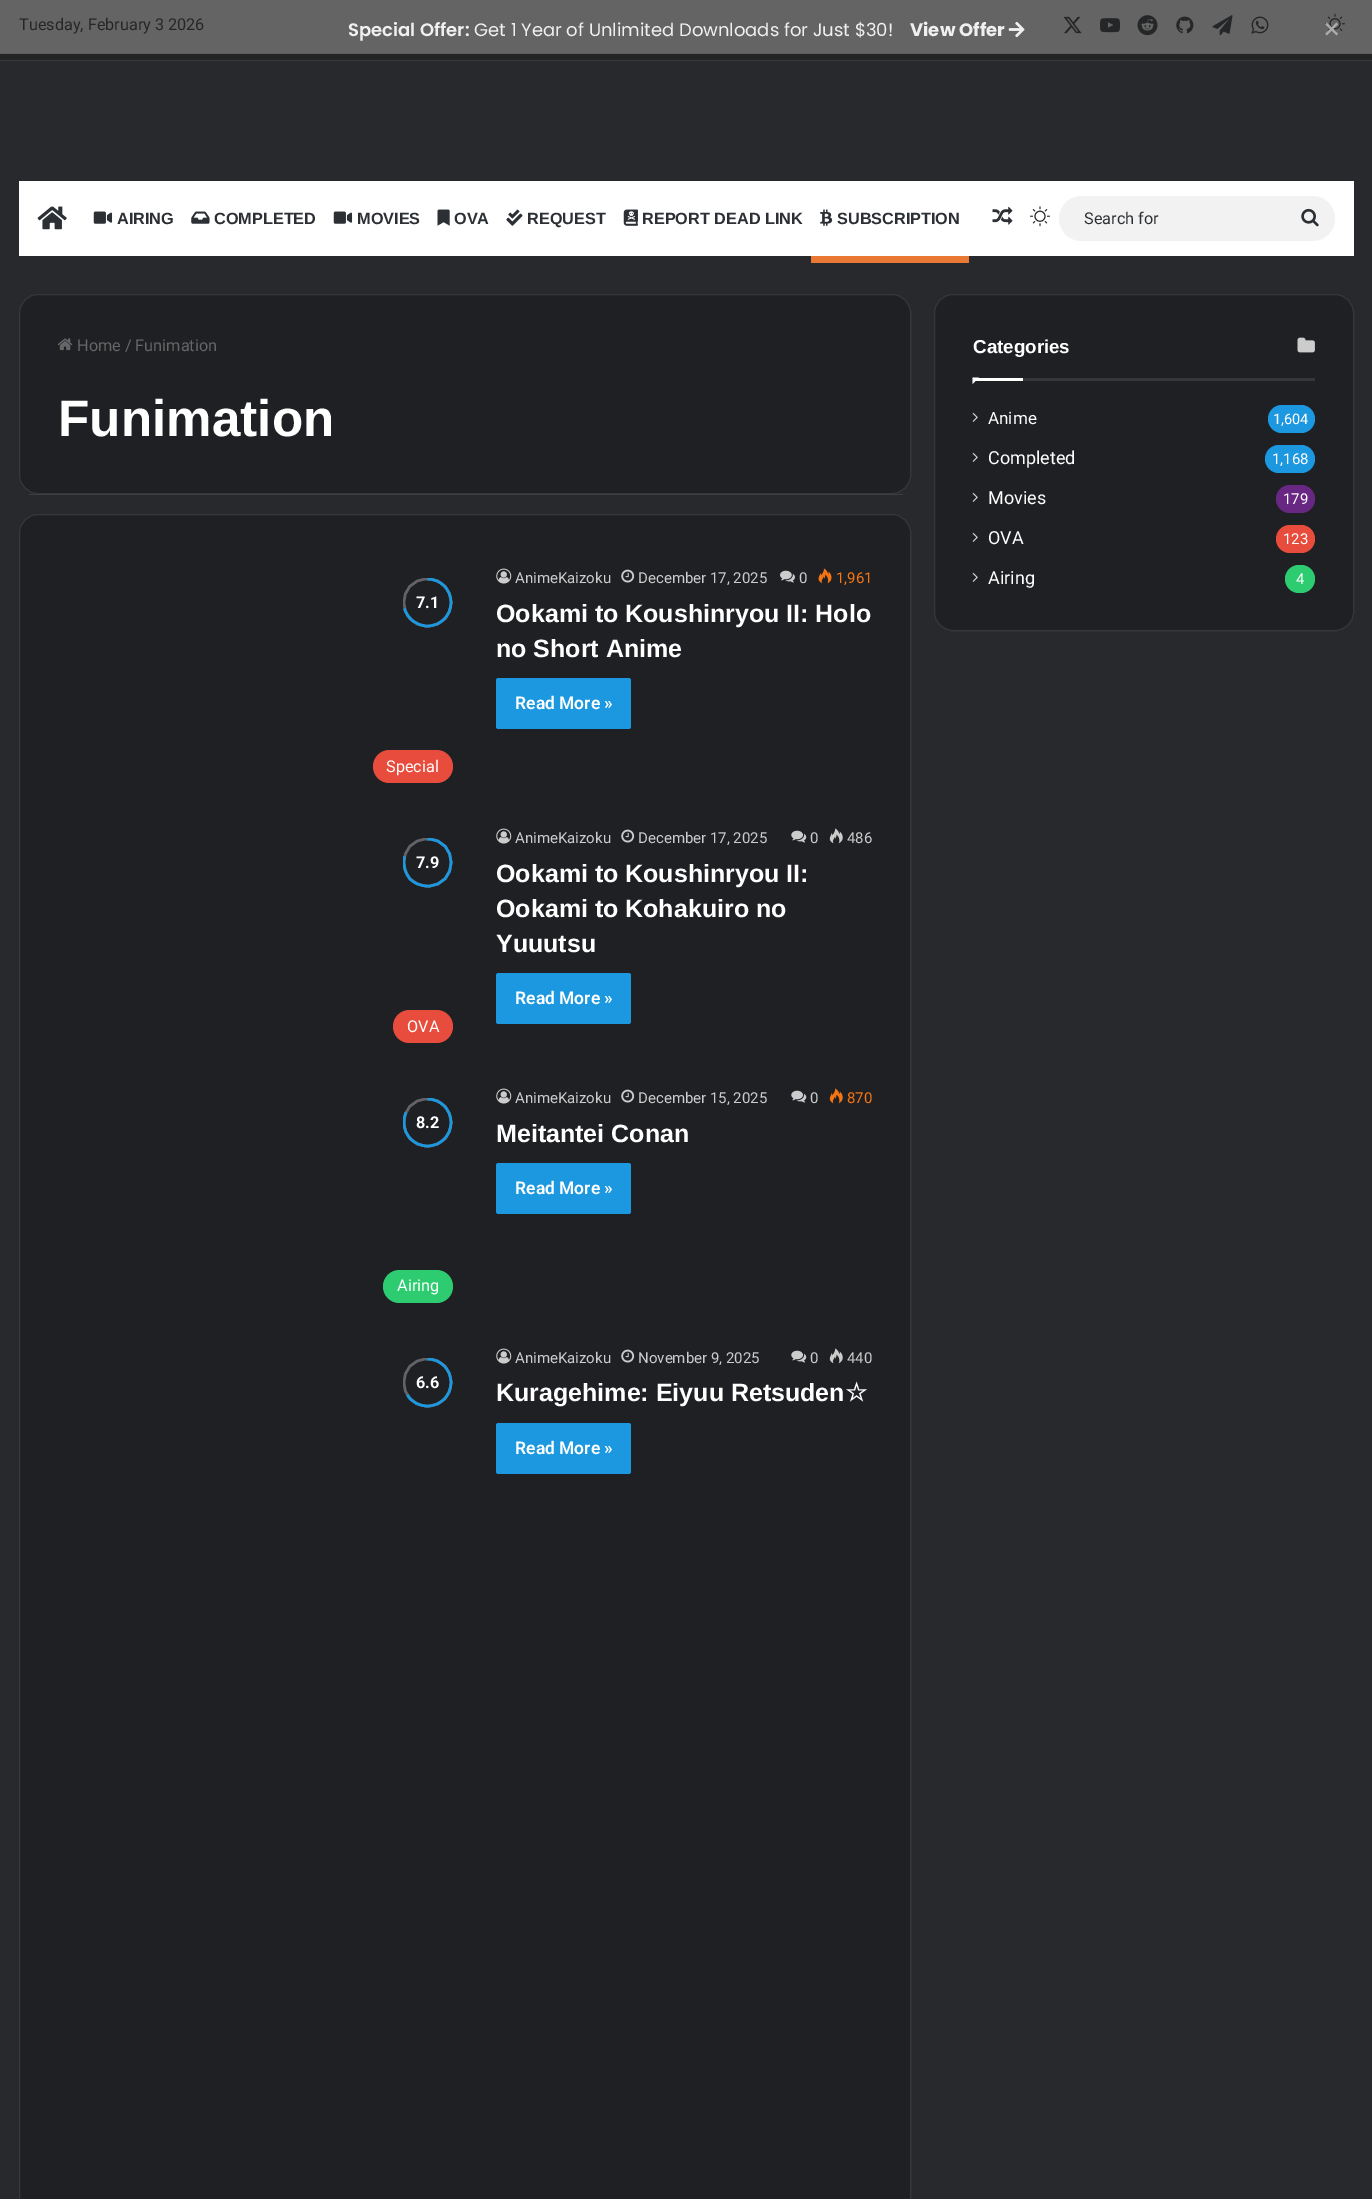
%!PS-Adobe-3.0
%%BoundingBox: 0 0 1372 2199
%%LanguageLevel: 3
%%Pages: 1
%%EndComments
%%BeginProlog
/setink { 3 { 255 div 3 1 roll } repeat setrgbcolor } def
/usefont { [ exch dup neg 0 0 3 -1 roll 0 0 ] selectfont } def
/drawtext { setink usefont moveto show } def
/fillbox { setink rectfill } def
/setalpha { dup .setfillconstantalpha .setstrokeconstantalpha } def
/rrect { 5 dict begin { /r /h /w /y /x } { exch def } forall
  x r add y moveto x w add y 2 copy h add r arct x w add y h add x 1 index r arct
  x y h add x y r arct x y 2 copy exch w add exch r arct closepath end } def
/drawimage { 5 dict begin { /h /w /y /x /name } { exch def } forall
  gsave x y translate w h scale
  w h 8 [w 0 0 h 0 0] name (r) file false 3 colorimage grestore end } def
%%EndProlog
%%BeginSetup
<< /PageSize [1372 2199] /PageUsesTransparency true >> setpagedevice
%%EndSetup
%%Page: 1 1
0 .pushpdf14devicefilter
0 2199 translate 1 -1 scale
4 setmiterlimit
0 0 1372 2199 39 41 45 fillbox
0 54 1372 6 36 36 37 fillbox
0 0 1372 53 100 100 100 fillbox
0 53 1372 1 93 93 93 fillbox
(Tuesday, February 3 2026) 19 30 /Roboto-Regular 16.25 37 38 39 drawtext
(assets/img1.rgb) 1063 16 19 18 drawimage
(assets/img2.rgb) 1100 18 20 15 drawimage
(assets/img3.rgb) 1137 15 21 21 drawimage
(assets/img4.rgb) 1176 16 18 18 drawimage
(assets/img5.rgb) 1212 15 21 21 drawimage
(assets/img6.rgb) 1251 16 18 18 drawimage
(assets/img7.rgb) 1325 13 20 21 drawimage
19 181 1335 75 255 255 255 fillbox
(assets/img8.rgb) 37 206 30 24 drawimage
(assets/img9.rgb) 93 211 20 13 drawimage
(AIRING) 117 224 /LiberationSans-Bold 16.25 44 47 52 drawtext
(assets/img10.rgb) 191 211 19 13 drawimage
(COMPLETED) 214 224 /LiberationSans-Bold 16.25 44 47 52 drawtext
(assets/img9.rgb) 333 211 20 13 drawimage
(MOVIES) 357 224 /LiberationSans-Bold 16.25 44 47 52 drawtext
(assets/img11.rgb) 437 209 13 17 drawimage
(OVA) 454 224 /LiberationSans-Bold 16.25 44 47 52 drawtext
(assets/img12.rgb) 506 209 17 17 drawimage
(REQUEST) 527 224 /LiberationSans-Bold 16.25 44 47 52 drawtext
(assets/img13.rgb) 623 209 15 17 drawimage
(REPORT DEAD LINK) 642 224 /LiberationSans-Bold 16.25 44 47 52 drawtext
811 256 158 7 234 120 53 fillbox
(assets/img14.rgb) 820 209 13 17 drawimage
(SUBSCRIPTION) 837 224 /LiberationSans-Bold 16.25 44 47 52 drawtext
(assets/img15.rgb) 992 206 21 19 drawimage
(assets/img16.rgb) 1030 206 20 21 drawimage
242 242 242 setink
1059 196 276 45 22.5 rrect fill
(Search for) 1084 224 /Roboto-Regular 16.25 44 47 52 drawtext
(assets/img17.rgb) 1301 208 18 19 drawimage
31 32 36 setink
19 294 892 200 19 rrect fill
0.1 setalpha
255 255 255 setink
19.5 294.5 891 199 18.5 rrect stroke
1 setalpha
(assets/img18.rgb) 57 338 16 13 drawimage
(Home / Funimation) 77 351 /Roboto-Regular 16.25 102 102 102 drawtext
(Funimation) 58 436 /LiberationSans-Bold 51.25 255 255 255 drawtext
29 494 874 1 61 62 66 fillbox
31 32 36 setink
19 514 892 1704 19 rrect fill
0.1 setalpha
255 255 255 setink
19.5 514.5 891 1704 18.5 rrect stroke
gsave
403 578 50 50 rectclip
1 setalpha
98 99 102 setink
2.5 setlinewidth
427.5 579 moveto 459 579 459 626 427.5 626 curveto 396 626 396 579 427.5 579 curveto stroke
27 152 224 setink
427.5 579 moveto 440.5 579 451 589.5 451 602.5 curveto 451 615.5 440.5 626 427.5 626 curveto 416.5 626 407 618.5 404.5 608.5 curveto stroke
grestore
1 setalpha
(7.1) 416 608 /Roboto-Bold 16.25 255 255 255 drawtext
231 76 60 setink
373 750 80 33 16.5 rrect fill
(Special) 386 772 /Roboto-Regular 16.25 255 255 255 drawtext
(assets/img19.rgb) 496 568 16 16 drawimage
(AnimeKaizoku) 515 583 /Roboto-Regular 15 204 204 204 drawtext
(assets/img20.rgb) 621 569 14 14 drawimage
(December 17, 2025) 638 583 /Roboto-Regular 15 204 204 204 drawtext
(assets/img21.rgb) 780 570 15 13 drawimage
(0) 799 583 /Roboto-Regular 15 204 204 204 drawtext
(assets/img22.rgb) 818 568 14 16 drawimage
(1,961) 836 583 /Roboto-Regular 15 244 117 18 drawtext
(Ookami to Koushinryou II: Holo) 496 622 /LiberationSans-Bold 25 255 255 255 drawtext
(no Short Anime) 496 657 /LiberationSans-Bold 25 255 255 255 drawtext
27 152 224 setink
496 678 135 51 2.5 rrect fill
(Read More ») 515 709 /Roboto-SemiBold 17.5 255 255 255 drawtext
gsave
403 838 50 50 rectclip
98 99 102 setink
2.5 setlinewidth
427.5 839 moveto 459 839 459 886 427.5 886 curveto 396 886 396 839 427.5 839 curveto stroke
27 152 224 setink
427.5 839 moveto 459 839 459 886 427.5 886 curveto 421 886 415 883.5 410.5 879.5 curveto 405 873.5 402.5 864.5 404.5 856.5 curveto stroke
grestore
(7.9) 416 868 /Roboto-Bold 16.25 255 255 255 drawtext
231 76 60 setink
393 1010 60 33 16.5 rrect fill
(OVA) 407 1032 /Roboto-Regular 16.25 255 255 255 drawtext
(assets/img19.rgb) 496 828 16 16 drawimage
(AnimeKaizoku) 515 843 /Roboto-Regular 15 204 204 204 drawtext
(assets/img20.rgb) 621 829 14 14 drawimage
(December 17, 2025) 638 843 /Roboto-Regular 15 204 204 204 drawtext
(assets/img23.rgb) 791 830 16 13 drawimage
(0) 810 843 /Roboto-Regular 15 204 204 204 drawtext
(assets/img24.rgb) 829 828 14 16 drawimage
(486) 847 843 /Roboto-Regular 15 204 204 204 drawtext
(Ookami to Koushinryou II:) 496 882 /LiberationSans-Bold 25 255 255 255 drawtext
(Ookami to Kohakuiro no) 496 917 /LiberationSans-Bold 25 255 255 255 drawtext
(Yuuutsu) 496 952 /LiberationSans-Bold 25 255 255 255 drawtext
27 152 224 setink
496 973 135 51 2.5 rrect fill
(Read More ») 515 1004 /Roboto-SemiBold 17.5 255 255 255 drawtext
gsave
403 1098 50 50 rectclip
98 99 102 setink
2.5 setlinewidth
427.5 1099 moveto 459 1099 459 1146 427.5 1146 curveto 396 1146 396 1099 427.5 1099 curveto stroke
27 152 224 setink
427.5 1099 moveto 440.5 1099 451 1109.5 451 1122.5 curveto 451 1135.5 440.5 1146 427.5 1146 curveto 414.5 1146 404 1135.5 404 1122.5 curveto 404 1119 404.5 1115.5 406 1112.5 curveto stroke
grestore
(8.2) 416 1128 /Roboto-Bold 16.25 255 255 255 drawtext
46 204 113 setink
383 1270 70 33 16.5 rrect fill
(Airing) 397 1291 /Roboto-Regular 16.25 255 255 255 drawtext
(assets/img19.rgb) 496 1088 16 16 drawimage
(AnimeKaizoku) 515 1103 /Roboto-Regular 15 204 204 204 drawtext
(assets/img20.rgb) 621 1089 14 14 drawimage
(December 15, 2025) 638 1103 /Roboto-Regular 15 204 204 204 drawtext
(assets/img23.rgb) 791 1090 16 13 drawimage
(0) 810 1103 /Roboto-Regular 15 204 204 204 drawtext
(assets/img25.rgb) 829 1088 14 16 drawimage
(870) 847 1103 /Roboto-Regular 15 244 117 18 drawtext
(Meitantei Conan) 496 1142 /LiberationSans-Bold 25 255 255 255 drawtext
27 152 224 setink
496 1163 135 51 2.5 rrect fill
(Read More ») 515 1194 /Roboto-SemiBold 17.5 255 255 255 drawtext
gsave
403 1358 50 50 rectclip
98 99 102 setink
2.5 setlinewidth
427.5 1359 moveto 459 1359 459 1406 427.5 1406 curveto 396 1406 396 1359 427.5 1359 curveto stroke
27 152 224 setink
427.5 1359 moveto 440.5 1359 451 1369.5 451 1382.5 curveto 451 1395.5 440.5 1406 427.5 1406 curveto 419 1406 411.5 1402 407.5 1395 curveto stroke
grestore
(6.6) 416 1388 /Roboto-Bold 16.25 255 255 255 drawtext
(assets/img19.rgb) 496 1348 16 16 drawimage
(AnimeKaizoku) 515 1363 /Roboto-Regular 15 204 204 204 drawtext
(assets/img20.rgb) 621 1349 14 14 drawimage
(November 9, 2025) 638 1363 /Roboto-Regular 15 204 204 204 drawtext
(assets/img23.rgb) 791 1350 16 13 drawimage
(0) 810 1363 /Roboto-Regular 15 204 204 204 drawtext
(assets/img24.rgb) 829 1348 14 16 drawimage
(440) 847 1363 /Roboto-Regular 15 204 204 204 drawtext
(Kuragehime: Eiyuu Retsuden) 496 1401 /LiberationSans-Bold 25 255 255 255 drawtext
(☆) 845 1401 /DejaVuSans-Bold 25 255 255 255 drawtext
27 152 224 setink
496 1423 135 51 2.5 rrect fill
(Read More ») 515 1454 /Roboto-SemiBold 17.5 255 255 255 drawtext
31 32 36 setink
934 294 420 337 19 rrect fill
0.1 setalpha
255 255 255 setink
934.5 294.5 419 336 18.5 rrect stroke
1 setalpha
1023 378 292 3 53 54 58 fillbox
(Categories) 973 353 /LiberationSans-Bold 18.75 255 255 255 drawtext
(assets/img26.rgb) 1297 337 18 16 drawimage
972.5 377.5 moveto 979 377.5 lineto 972.5 384 lineto closepath fill
973 378 50 3 255 255 255 fillbox
(assets/img27.rgb) 972 412 6 10 drawimage
(Anime) 988 424 /Roboto-Regular 17 255 255 255 drawtext
28 152 224 setink
1268 405 47 28 14 rrect fill
(1,604) 1273 424 /Roboto-Regular 14.5 255 255 255 drawtext
(assets/img27.rgb) 972 452 6 10 drawimage
(Completed) 988 464 /Roboto-Regular 18 255 255 255 drawtext
28 152 224 setink
1265 445 50 28 14 rrect fill
(1,168) 1272 464 /Roboto-Regular 15 255 255 255 drawtext
(assets/img27.rgb) 972 492 6 10 drawimage
(Movies) 988 504 /Roboto-Regular 18 255 255 255 drawtext
105 39 132 setink
1276 485 39 28 14 rrect fill
(179) 1283 504 /Roboto-Regular 15 255 255 255 drawtext
(assets/img27.rgb) 972 532 6 10 drawimage
(OVA) 988 544 /Roboto-Regular 18 255 255 255 drawtext
231 76 60 setink
1276 525 39 28 14 rrect fill
(123) 1283 544 /Roboto-Regular 15 255 255 255 drawtext
(assets/img27.rgb) 972 572 6 10 drawimage
(Airing) 988 584 /Roboto-Regular 18 255 255 255 drawtext
46 204 113 setink
1285 565 30 28 14 rrect fill
(4) 1296 584 /Roboto-Regular 15 255 255 255 drawtext
0 60 1372 1 57 58 59 fillbox
(Special Offer:) 348 36 /Poppins-SemiBold 18 240 240 240 drawtext
(Get 1 Year of Unlimited Downloads for Just $30!) 474 36 /Poppins-Regular 18 240 240 240 drawtext
(View Offer) 910 36 /Poppins-Bold 18 240 240 240 drawtext
(assets/img28.rgb) 1008 21 17 17 drawimage
(×) 1322 40 /Poppins-Regular 30 172 172 172 drawtext
.poppdf14devicefilter showpage
%%EOF
